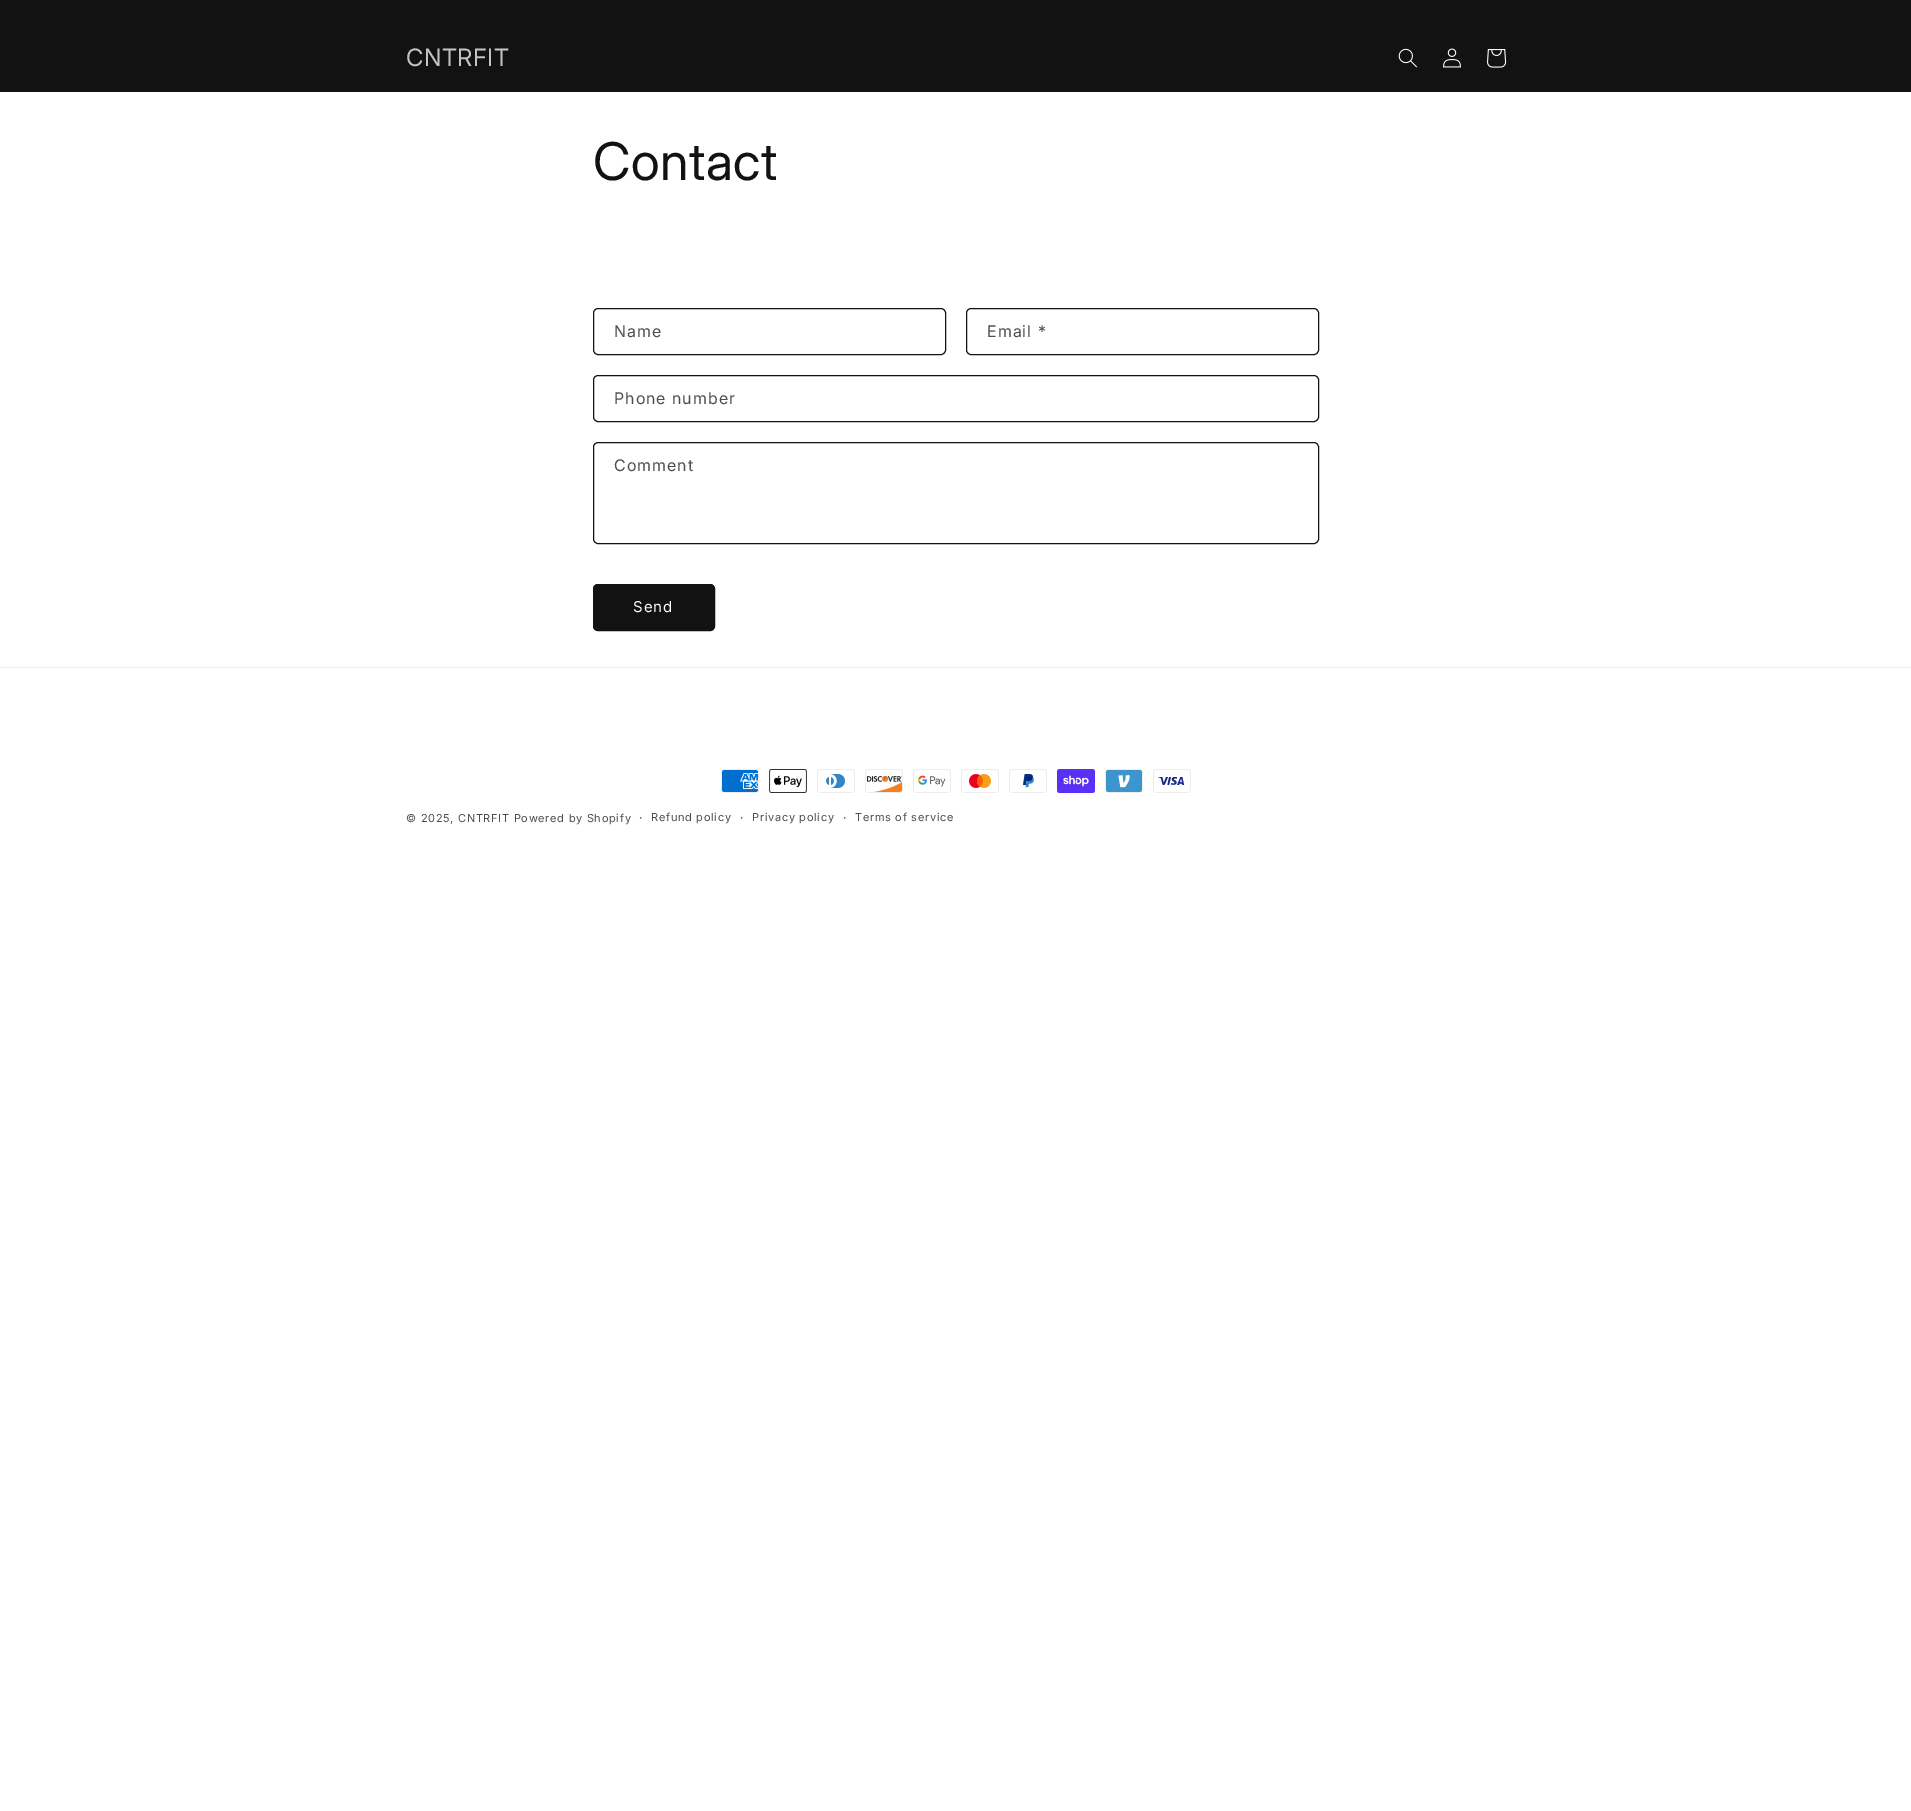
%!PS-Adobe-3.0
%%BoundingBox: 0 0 1911 1811
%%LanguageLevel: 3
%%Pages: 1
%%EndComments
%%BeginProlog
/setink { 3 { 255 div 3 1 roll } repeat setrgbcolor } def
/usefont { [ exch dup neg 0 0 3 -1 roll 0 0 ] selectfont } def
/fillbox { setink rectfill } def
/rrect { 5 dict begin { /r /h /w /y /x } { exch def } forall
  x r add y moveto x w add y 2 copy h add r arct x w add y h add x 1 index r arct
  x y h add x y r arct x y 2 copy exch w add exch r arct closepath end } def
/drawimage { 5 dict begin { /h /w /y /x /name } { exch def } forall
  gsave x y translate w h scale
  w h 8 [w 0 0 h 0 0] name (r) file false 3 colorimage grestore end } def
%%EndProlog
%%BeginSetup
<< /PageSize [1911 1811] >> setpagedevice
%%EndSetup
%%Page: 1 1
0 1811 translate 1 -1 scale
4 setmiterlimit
0 0 1911 1811 255 255 255 fillbox
0 0 1911 92 18 18 18 fillbox
/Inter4-Regular 24 usefont
196 196 196 setink
406 66 moveto 0.5 0 (CNTRFIT) ashow
(assets/img1.rgb) 1398 48 19 20 drawimage
(assets/img2.rgb) 1443 48 18 20 drawimage
(assets/img3.rgb) 1487 49 20 19 drawimage
/Inter-Regular 52 usefont
18 18 18 setink
593 180 moveto 0.5 0 (Contact) ashow
593.5 308.5 352 46 4.5 rrect stroke
/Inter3-Regular 16 usefont
77 77 77 setink
614 337 moveto 1 0 (Name) ashow
18 18 18 setink
966.5 308.5 352 46 4.5 rrect stroke
77 77 77 setink
987 337 moveto 1 0 (Email *) ashow
18 18 18 setink
593.5 375.5 725 46 4.5 rrect stroke
77 77 77 setink
614 404 moveto 1 0 (Phone number) ashow
18 18 18 setink
593.5 442.5 725 101 4.5 rrect stroke
77 77 77 setink
614 471 moveto 1 0 (Comment) ashow
18 18 18 setink
593 584 122 47 5 rrect fill
593.5 584.5 121 46 4.5 rrect stroke
/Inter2-Regular 15 usefont
255 255 255 setink
633 612 moveto 1 0 (Send) ashow
0 667 1911 1 236 236 236 fillbox
(assets/img4.rgb) 721 769 38 24 drawimage
(assets/img5.rgb) 769 769 38 24 drawimage
(assets/img6.rgb) 817 769 38 24 drawimage
(assets/img7.rgb) 865 769 38 24 drawimage
(assets/img8.rgb) 913 769 38 24 drawimage
(assets/img9.rgb) 961 769 38 24 drawimage
(assets/img10.rgb) 1009 769 38 24 drawimage
(assets/img11.rgb) 1057 769 38 24 drawimage
(assets/img12.rgb) 1105 769 38 24 drawimage
(assets/img13.rgb) 1153 769 38 24 drawimage
/Inter2-Regular 11 usefont
77 77 77 setink
406 822 moveto 0.7 0 (© 2025, CNTRFIT Powered by Shopify) ashow
/Inter2-Regular 12 usefont
639 822 moveto 0.7 0 (·) ashow
/Inter2-Regular 11 usefont
651 821 moveto 0.7 0 (Refund policy) ashow
/Inter2-Regular 12 usefont
740 822 moveto 0.7 0 (·) ashow
/Inter2-Regular 11 usefont
752 821 moveto 0.7 0 (Privacy policy) ashow
/Inter2-Regular 12 usefont
843 822 moveto 0.7 0 (·) ashow
/Inter2-Regular 11 usefont
855 821 moveto 0.7 0 (Terms of service) ashow
showpage
%%EOF
